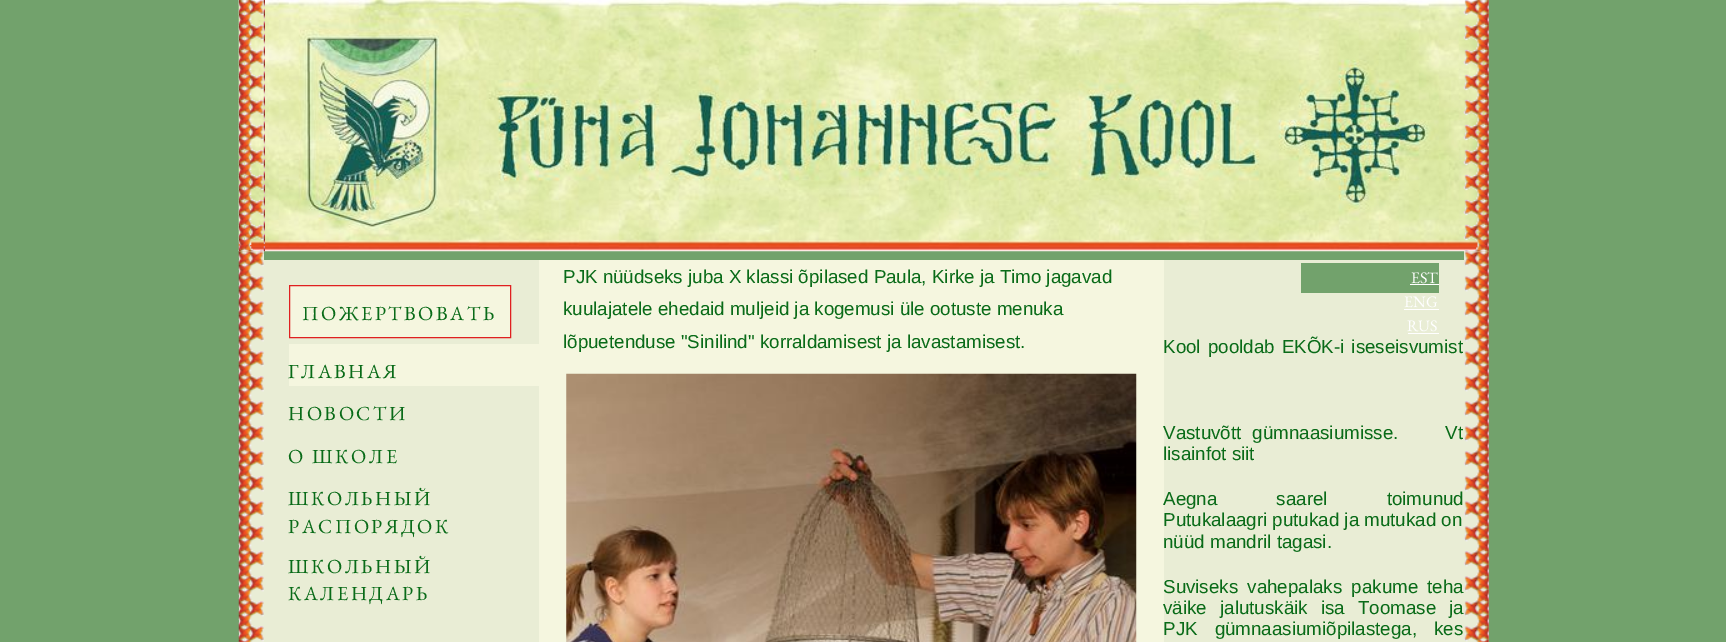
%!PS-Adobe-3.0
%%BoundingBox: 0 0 1726 642
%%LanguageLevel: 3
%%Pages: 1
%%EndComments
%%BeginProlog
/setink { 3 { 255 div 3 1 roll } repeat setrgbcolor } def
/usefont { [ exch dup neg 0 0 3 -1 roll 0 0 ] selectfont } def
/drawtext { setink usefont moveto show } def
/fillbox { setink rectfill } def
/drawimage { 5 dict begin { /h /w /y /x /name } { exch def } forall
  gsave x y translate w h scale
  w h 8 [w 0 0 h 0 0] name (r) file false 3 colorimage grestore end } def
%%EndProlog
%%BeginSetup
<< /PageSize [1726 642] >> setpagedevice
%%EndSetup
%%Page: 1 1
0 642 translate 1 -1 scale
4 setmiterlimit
0 0 1726 642 114 162 108 fillbox
(assets/img3.rgb) 238 0 1251 252 drawimage
239 251 25 391 233 237 213 fillbox
(assets/img4.rgb) 238 251 26 391 drawimage
(assets/img1.rgb) 238 0 27 252 drawimage
1464 251 25 391 233 237 213 fillbox
(assets/img6.rgb) 1464 251 25 391 drawimage
(assets/img2.rgb) 1463 0 26 252 drawimage
264 260 1200 382 233 237 213 fillbox
245 246 223 setink
289.5 285.5 moveto 510.5 285.5 lineto 510.5 337.5 lineto 289.5 337.5 lineto closepath gsave fill grestore
224 32 32 setink
stroke
/EBGaramond-Regular 20 usefont
9 107 24 setink
302 320 moveto 2.5 0 (ПОЖЕРТВОВАТЬ) ashow
289 344 250 42 245 246 223 fillbox
9 107 24 setink
288 378 moveto 2.5 0 (ГЛАВНАЯ) ashow
288 420 moveto 2.5 0 (НОВОСТИ) ashow
288 463 moveto 2.5 0 (О ШКОЛЕ) ashow
288 505 moveto 2.5 0 (ШКОЛЬНЫЙ) ashow
288 533 moveto 2.5 0 (РАСПОРЯДОК) ashow
288 573 moveto 2.5 0 (ШКОЛЬНЫЙ) ashow
288 600 moveto 2.5 0 (КАЛЕНДАРЬ) ashow
539 260 625 382 245 246 223 fillbox
(PJK nüüdseks juba X klassi õpilased Paula, Kirke ja Timo jagavad) 563 283 /LiberationSans-Regular 18.75 9 107 24 drawtext
(kuulajatele ehedaid muljeid ja kogemusi üle ootuste menuka) 563 315 /LiberationSans-Regular 18.75 9 107 24 drawtext
(lõpuetenduse "Sinilind" korraldamisest ja lavastamisest.) 563 348 /LiberationSans-Regular 18.75 9 107 24 drawtext
(assets/img5.rgb) 566 373 571 269 drawimage
1301 263 138 30 114 162 108 fillbox
(EST) 1411 283 /EBGaramond-Regular 16 255 255 255 drawtext
1410 284 29 1 255 255 255 fillbox
(ENG) 1404 307 /EBGaramond-Regular 16 255 255 255 drawtext
1404 309 35 1 255 255 255 fillbox
(RUS) 1407 331 /EBGaramond-Regular 16 255 255 255 drawtext
1408 333 31 1 255 255 255 fillbox
/LiberationSans-Regular 18.75 usefont
9 107 24 setink
1163 353 moveto 2 0 32 (Kool pooldab EKÕK-i iseseisvumist) widthshow
1163 439 moveto 6 0 32 (Vastuvõtt gümnaasiumisse.) widthshow
(Vt) 1445 439 /LiberationSans-Regular 18.75 9 107 24 drawtext
(lisainfot siit) 1163 460 /LiberationSans-Regular 18.75 9 107 24 drawtext
1163 505 moveto 54 0 32 (Aegna saarel toimunud) widthshow
(Putukalaagri putukad ja mutukad on) 1163 526 /LiberationSans-Regular 18.75 9 107 24 drawtext
(nüüd mandril tagasi.) 1163 548 /LiberationSans-Regular 18.75 9 107 24 drawtext
1163 593 moveto 4 0 32 (Suviseks vahepalaks pakume teha) widthshow
1163 614 moveto 8 0 32 (väike jalutuskäik isa Toomase ja) widthshow
1163 635 moveto 12 0 32 (PJK gümnaasiumiõpilastega, kes) widthshow
showpage
%%EOF
